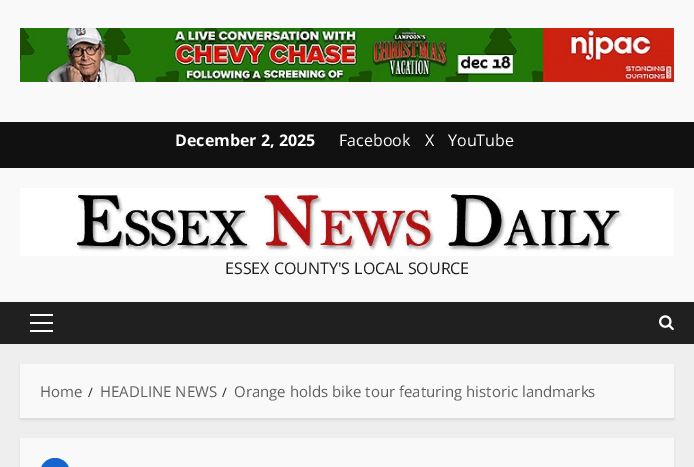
%!PS-Adobe-3.0
%%BoundingBox: 0 0 694 467
%%LanguageLevel: 3
%%Pages: 1
%%EndComments
%%BeginProlog
/setink { 3 { 255 div 3 1 roll } repeat setrgbcolor } def
/usefont { [ exch dup neg 0 0 3 -1 roll 0 0 ] selectfont } def
/drawtext { setink usefont moveto show } def
/fillbox { setink rectfill } def
/setalpha { dup .setfillconstantalpha .setstrokeconstantalpha } def
/rrect { 5 dict begin { /r /h /w /y /x } { exch def } forall
  x r add y moveto x w add y 2 copy h add r arct x w add y h add x 1 index r arct
  x y h add x y r arct x y 2 copy exch w add exch r arct closepath end } def
/softshadow { 12 dict begin { /a /b /q /h /w /y /x } { exch def } forall gsave /was 0 def
  9 -2 -9 { dup b mul 4 div /e exch def 1 sub .425 mul 2.718 exch exp 1 add a .99 .min exch div /now exch def
    1 1 now sub 1 was sub div sub setalpha /was now def
    w h .min e 2 mul add 0 gt { x e sub y e sub w e 2 mul add h e 2 mul add
      q e add b .6 mul add w h .min 2 div e add .min 0 .max rrect fill } if } for grestore end } def
/drawimage { 5 dict begin { /h /w /y /x /name } { exch def } forall
  gsave x y translate w h scale
  w h 8 [w 0 0 h 0 0] name (r) file false 3 colorimage grestore end } def
%%EndProlog
%%BeginSetup
<< /PageSize [694 467] /PageUsesTransparency true >> setpagedevice
%%EndSetup
%%Page: 1 1
0 .pushpdf14devicefilter
0 467 translate 1 -1 scale
4 setmiterlimit
0 0 694 467 238 238 238 fillbox
0 0 694 122 249 249 249 fillbox
(assets/img1.rgb) 20 28 654 54 drawimage
0 122 694 46 17 17 17 fillbox
(December 2, 2025) 175 146 /OpenSans-Bold 16 255 255 255 drawtext
(Facebook) 339 146 /OpenSans-Regular 16 255 255 255 drawtext
(X) 425 146 /OpenSans-Regular 16 255 255 255 drawtext
(YouTube) 448 146 /OpenSans-Regular 16 255 255 255 drawtext
0 168 694 134 249 249 249 fillbox
(assets/img2.rgb) 20 188 654 68 drawimage
(ESSEX COUNTY'S LOCAL SOURCE) 225 274 /OpenSans-Regular 16 31 31 31 drawtext
0 302 694 42 32 32 32 fillbox
30 322 23 2 255 255 255 fillbox
30 314 23 2 255 255 255 fillbox
30 330 23 2 255 255 255 fillbox
(assets/img3.rgb) 659 315 15 16 drawimage
0 0 0 setink
20 366 654 54 0 1 0.08 softshadow
20 364 654 54 249 249 249 fillbox
(Home) 40 397 /OpenSans-Regular 15 96 96 96 drawtext
(/) 88 397 /OpenSans-Regular 13 31 31 31 drawtext
(HEADLINE NEWS) 100 397 /OpenSans-Regular 15 96 96 96 drawtext
(/) 222 397 /OpenSans-Regular 13 31 31 31 drawtext
(Orange holds bike tour featuring historic landmarks) 234 397 /OpenSans-Regular 15 96 96 96 drawtext
0 0 0 setink
20 440 654 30 0 1 0.08 softshadow
20 438 654 29 249 249 249 fillbox
22 101 207 setink
40 458 30 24 15 rrect fill
.poppdf14devicefilter showpage
%%EOF
